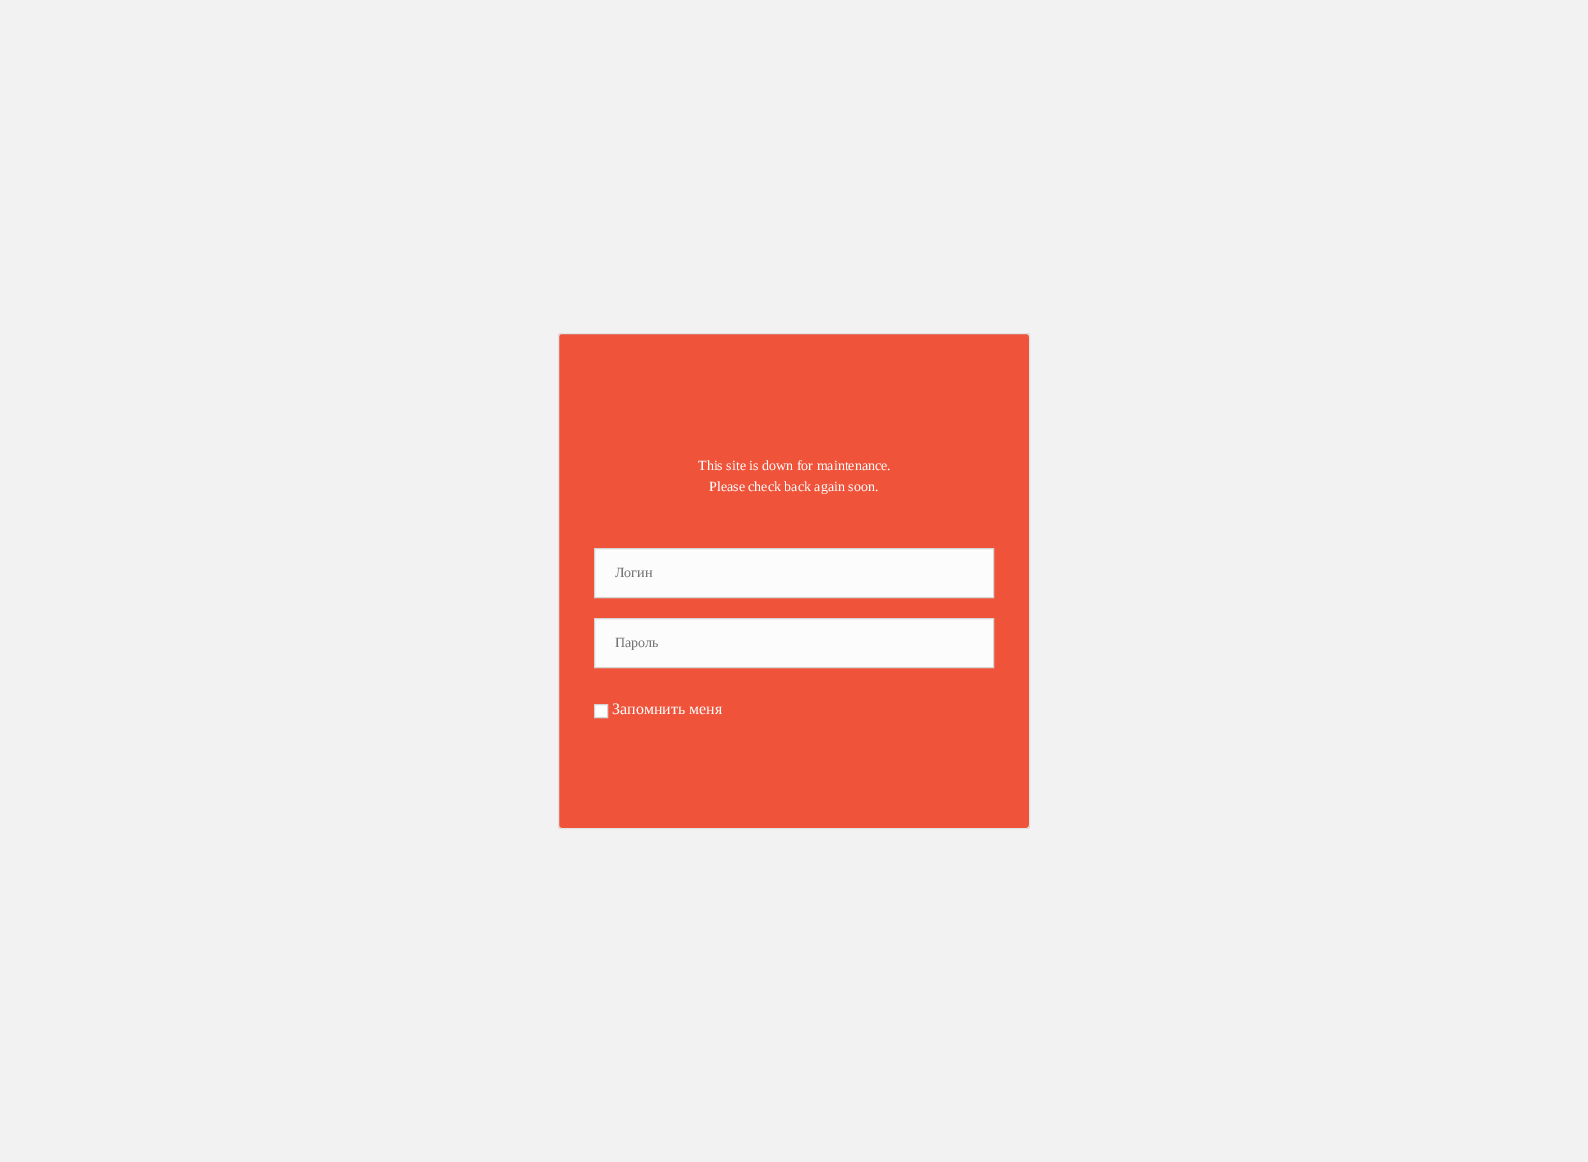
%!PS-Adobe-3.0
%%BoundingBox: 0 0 1588 1162
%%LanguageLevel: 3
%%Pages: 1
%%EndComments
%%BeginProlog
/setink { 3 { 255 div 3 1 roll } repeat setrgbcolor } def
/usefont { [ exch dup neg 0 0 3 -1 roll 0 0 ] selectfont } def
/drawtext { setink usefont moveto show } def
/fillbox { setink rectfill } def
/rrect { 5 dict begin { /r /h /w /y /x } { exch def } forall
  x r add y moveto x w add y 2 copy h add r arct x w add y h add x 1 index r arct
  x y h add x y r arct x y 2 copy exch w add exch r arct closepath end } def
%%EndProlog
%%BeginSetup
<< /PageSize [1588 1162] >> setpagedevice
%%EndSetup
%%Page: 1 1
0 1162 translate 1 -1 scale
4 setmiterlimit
0 0 1588 1162 242 242 242 fillbox
239 84 59 setink
558 333 472 496 4 rrect fill
227 80 56 setink
562 335 moveto 1026 335 lineto 1028 335 1029 336 1029 338 curveto 1029 337 lineto 1029 335 1028 334 1026 334 curveto 562 334 lineto 560 334 559 335 559 337 curveto 559 338 lineto 559 336 560 335 562 335 curveto closepath fill
227 227 227 setink
558.5 333.5 471 495 3.5 rrect stroke
(This site is down for maintenance.) 698 470 /LiberationSerif-Regular 14 255 255 255 drawtext
(Please check back again soon.) 709 491 /LiberationSerif-Regular 14 255 255 255 drawtext
252 252 252 setink
594.5 548.5 moveto 993.5 548.5 lineto 993.5 597.5 lineto 594.5 597.5 lineto closepath gsave fill grestore
212 212 212 setink
stroke
(Логин) 615 577 /LiberationSerif-Regular 14 117 117 117 drawtext
252 252 252 setink
594.5 618.5 moveto 993.5 618.5 lineto 993.5 667.5 lineto 594.5 667.5 lineto closepath gsave fill grestore
212 212 212 setink
stroke
(Пароль) 615 647 /LiberationSerif-Regular 14 117 117 117 drawtext
255 255 255 setink
594.5 704.5 moveto 607.5 704.5 lineto 607.5 717.5 lineto 594.5 717.5 lineto closepath gsave fill grestore
212 212 212 setink
stroke
(Запомнить меня) 612 714 /LiberationSerif-Regular 16 255 255 255 drawtext
showpage
%%EOF
